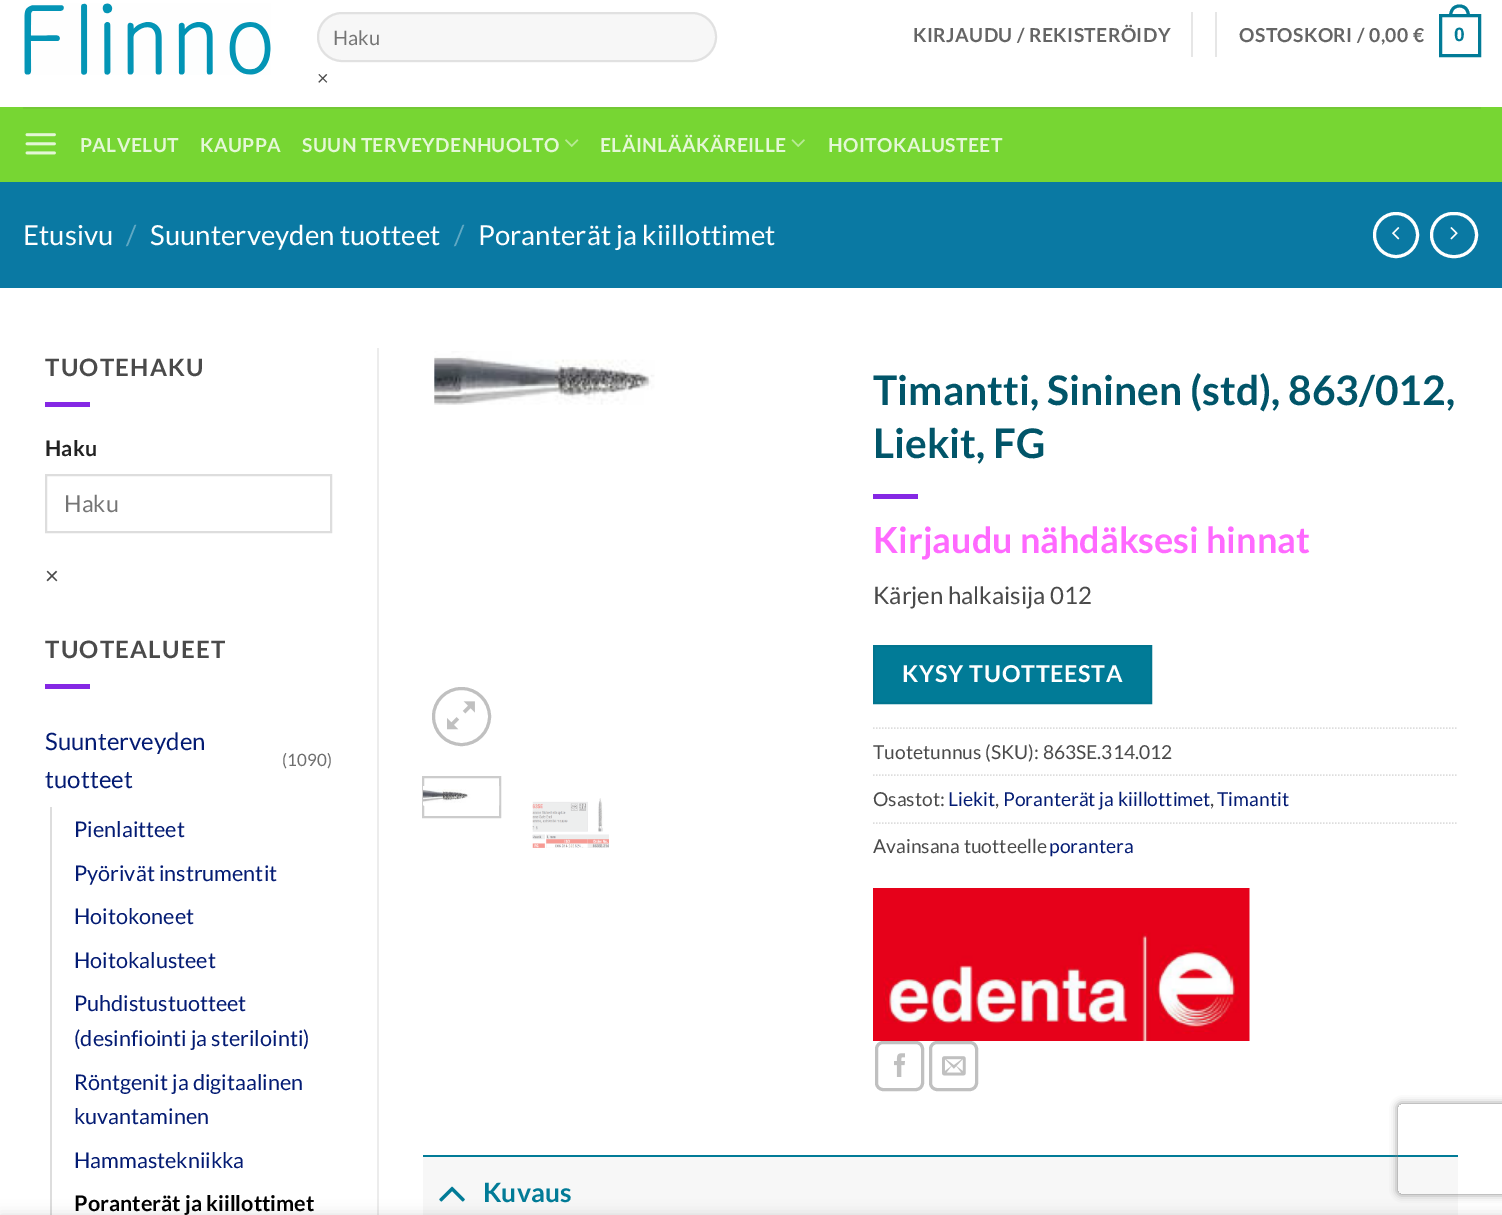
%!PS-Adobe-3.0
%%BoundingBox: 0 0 1502 1215
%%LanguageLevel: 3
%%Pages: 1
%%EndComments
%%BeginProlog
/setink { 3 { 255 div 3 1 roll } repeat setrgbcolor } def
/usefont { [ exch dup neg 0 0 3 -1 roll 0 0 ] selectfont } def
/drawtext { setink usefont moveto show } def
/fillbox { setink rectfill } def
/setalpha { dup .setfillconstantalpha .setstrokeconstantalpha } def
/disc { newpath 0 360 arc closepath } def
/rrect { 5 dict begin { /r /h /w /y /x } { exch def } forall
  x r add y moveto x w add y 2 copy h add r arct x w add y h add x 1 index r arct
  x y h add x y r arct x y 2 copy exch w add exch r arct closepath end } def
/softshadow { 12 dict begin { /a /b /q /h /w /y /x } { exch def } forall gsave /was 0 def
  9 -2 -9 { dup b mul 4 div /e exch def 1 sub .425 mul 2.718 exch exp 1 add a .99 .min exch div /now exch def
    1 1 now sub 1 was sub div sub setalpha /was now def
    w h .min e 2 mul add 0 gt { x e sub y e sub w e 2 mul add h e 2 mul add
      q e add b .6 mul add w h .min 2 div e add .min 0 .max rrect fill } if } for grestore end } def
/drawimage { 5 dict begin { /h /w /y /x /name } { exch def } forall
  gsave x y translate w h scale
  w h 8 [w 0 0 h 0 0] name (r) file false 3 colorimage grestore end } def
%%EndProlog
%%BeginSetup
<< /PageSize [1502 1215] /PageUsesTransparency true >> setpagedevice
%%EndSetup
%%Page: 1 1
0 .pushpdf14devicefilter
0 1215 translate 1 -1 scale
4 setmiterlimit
0 0 1502 1215 255 255 255 fillbox
(assets/img1.rgb) 24 3 247 72 drawimage
247 247 247 setink
317 12 400 50 25 rrect fill
0.09 setalpha
0 0 0 setink
2 setlinewidth
318 13 398 48 24 rrect stroke
1 setalpha
(Haku) 333 45 /Lato-Regular 20 117 117 117 drawtext
(×) 317 85 /Lato-Regular 20 74 74 74 drawtext
/Lato-Bold 19.25 usefont
101 101 101 setink
913 42 moveto 0.4 0 (KIRJAUDU / REKISTERÖIDY) ashow
1191 12 2 45 230 230 230 fillbox
1215 12 2 45 230 230 230 fillbox
101 101 101 setink
1239 42 moveto 0.4 0 (OSTOSKORI / 0,00 €) ashow
1 123 151 setink
3 setlinewidth
1440.5 15.5 39 40 rectstroke
1459.5 4.5 moveto 1466.5 4.5 1470 10 1470 16.5 curveto 1449 16.5 lineto 1449 10 1452.5 4.5 1459.5 4.5 curveto closepath 1459.5 7.5 moveto 1465 7.5 1467 12 1467 16.5 curveto 1452 16.5 lineto 1452 12 1454 7.5 1459.5 7.5 curveto closepath eofill
/LiberationSans-Bold 19.25 usefont
1454 41 moveto 0.4 0 (0) ashow
0 107 1502 75 119 214 51 fillbox
23 107 1458 2 115 200 53 fillbox
(assets/img2.rgb) 25 133 31 22 drawimage
/Lato-Bold 19.25 usefont
228 247 214 setink
80 152 moveto 0.4 0 (PALVELUT) ashow
200 152 moveto 0.4 0 (KAUPPA) ashow
302 152 moveto 0.4 0 (SUUN TERVEYDENHUOLTO) ashow
(assets/img3.rgb) 565 139 14 8 drawimage
600 152 moveto 0.4 0 (ELÄINLÄÄKÄREILLE) ashow
(assets/img4.rgb) 791 139 14 8 drawimage
828 152 moveto 0.4 0 (HOITOKALUSTEET) ashow
0 182 1502 106 10 121 163 fillbox
(Etusivu) 23 245 /Lato-Regular 27.6 255 255 255 drawtext
(/) 126 245 /Lato-Regular 27.6 96 168 195 drawtext
(Suunterveyden tuotteet) 150 245 /Lato-Regular 27.6 255 255 255 drawtext
(/) 454 245 /Lato-Regular 27.6 96 168 195 drawtext
(Poranterät ja kiillottimet) 478 245 /Lato-Regular 27.6 255 255 255 drawtext
1396 235 21.5 disc stroke
(assets/img5.rgb) 1392 227 8 13 drawimage
1431.5 213.5 45 43 21.5 rrect stroke
(assets/img6.rgb) 1450 227 8 13 drawimage
/Lato-Bold 24 usefont
74 74 74 setink
45 376 moveto 1.25 0 (TUOTEHAKU) ashow
45 402 45 5 133 40 228 fillbox
(Haku) 45 456 /Lato-Bold 21.6 34 34 34 drawtext
221 221 221 setink
2 setlinewidth
46 475 285 57 rectstroke
(Haku) 64 512 /Lato-Regular 23.25 117 117 117 drawtext
(×) 45 584 /Lato-Regular 24 74 74 74 drawtext
/Lato-Bold 24 usefont
45 658 moveto 1.25 0 (TUOTEALUEET) ashow
45 684 45 5 133 40 228 fillbox
(Suunterveyden) 45 750 /Lato-Regular 24 3 27 115 drawtext
(tuotteet) 45 788 /Lato-Regular 24 3 27 115 drawtext
(\(1090\)) 282 766 /Lato-Regular 17 110 110 110 drawtext
50 807 2 408 221 221 221 fillbox
(Pienlaitteet) 74 837 /Lato-Regular 21.6 3 27 115 drawtext
(Pyörivät instrumentit) 74 881 /Lato-Regular 21.6 3 27 115 drawtext
(Hoitokoneet) 74 924 /Lato-Regular 21.6 3 27 115 drawtext
(Hoitokalusteet) 74 968 /Lato-Regular 21.6 3 27 115 drawtext
(Puhdistustuotteet) 74 1011 /Lato-Regular 21.6 3 27 115 drawtext
(\(desinfiointi ja sterilointi\)) 74 1046 /Lato-Regular 21.6 3 27 115 drawtext
(Röntgenit ja digitaalinen) 74 1090 /Lato-Regular 21.6 3 27 115 drawtext
(kuvantaminen) 74 1124 /Lato-Regular 21.6 3 27 115 drawtext
(Hammastekniikka) 74 1168 /Lato-Regular 21.6 3 27 115 drawtext
(Poranterät ja kiillottimet) 74 1211 /Lato-Bold 21.6 0 0 0 drawtext
377 348 2 867 236 236 236 fillbox
(assets/img7.rgb) 434 351 221 54 drawimage
192 192 192 setink
3 setlinewidth
461.5 716.5 28 disc stroke
(assets/img8.rgb) 447 701 28 29 drawimage
204 204 204 setink
2 setlinewidth
423 777 77 40 rectstroke
(assets/img9.rgb) 423 786 77 20 drawimage
(assets/img10.rgb) 532 798 77 50 drawimage
(Timantti, Sininen \(std\), 863/012,) 873 405 /Lato-Bold 40.75 1 85 105 drawtext
(Liekit, FG) 873 458 /Lato-Bold 40.75 1 85 105 drawtext
873 494 45 5 133 40 228 fillbox
(Kirjaudu nähdäksesi hinnat) 873 553 /Lato-Bold 36 255 105 255 drawtext
(Kärjen halkaisija 012) 873 604 /Lato-Regular 24 74 74 74 drawtext
1 123 151 setink
874 646 moveto 1151 646 lineto 1151 703 lineto 874 703 lineto closepath gsave fill grestore
1 117 143 setink
stroke
/Lato-Bold 23.25 usefont
255 255 255 setink
902 682 moveto 0.75 0 (KYSY TUOTTEESTA) ashow
221 221 221 setink
1.5 setlinewidth
[1.5 1.5] 0 setdash
873 728 moveto 1458 728 lineto stroke
(Tuotetunnus \(SKU\): 863SE.314.012) 873 759 /Lato-Regular 19.25 74 74 74 drawtext
221 221 221 setink
873 775 moveto 1458 775 lineto stroke
(Osastot:) 873 806 /Lato-Regular 19.25 74 74 74 drawtext
(Liekit) 948 806 /Lato-Regular 19.25 3 27 115 drawtext
(,) 995 806 /Lato-Regular 19.25 74 74 74 drawtext
(Poranterät ja kiillottimet) 1003 806 /Lato-Regular 19.25 3 27 115 drawtext
(,) 1210 806 /Lato-Regular 19.25 74 74 74 drawtext
(Timantit) 1217 806 /Lato-Regular 19.25 3 27 115 drawtext
221 221 221 setink
873 823 moveto 1458 823 lineto stroke
(Avainsana tuotteelle) 873 853 /Lato-Regular 19.25 74 74 74 drawtext
(porantera) 1049 853 /Lato-Regular 19.25 3 27 115 drawtext
(assets/img11.rgb) 873 888 377 153 drawimage
192 192 192 setink
3 setlinewidth
[] 0 setdash
876.5 1042.5 46 47 6.5 rrect stroke
(assets/img12.rgb) 894 1053 11 24 drawimage
930.5 1042.5 46 47 6.5 rrect stroke
(assets/img13.rgb) 942 1056 24 20 drawimage
423 1157 1035 58 247 247 247 fillbox
423 1155 1035 2 1 123 151 fillbox
(assets/img14.rgb) 439 1186 26 16 drawimage
(Kuvaus) 483 1202 /Lato-Bold 26.5 1 123 151 drawtext
gsave
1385 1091 moveto 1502 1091 lineto 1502 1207 lineto 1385 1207 lineto closepath 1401 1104 moveto 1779 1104 lineto 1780.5 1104 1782 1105.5 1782 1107 curveto 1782 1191 lineto 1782 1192.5 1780.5 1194 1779 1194 curveto 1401 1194 lineto 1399.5 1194 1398 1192.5 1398 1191 curveto 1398 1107 lineto 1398 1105.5 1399.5 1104 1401 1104 curveto closepath eoclip newpath
128 128 128 setink
1398 1104 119 90 3 4 1 softshadow
grestore
0 0 0 setink
0 1215 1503 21 0 7 0.14 softshadow
.poppdf14devicefilter showpage
%%EOF
